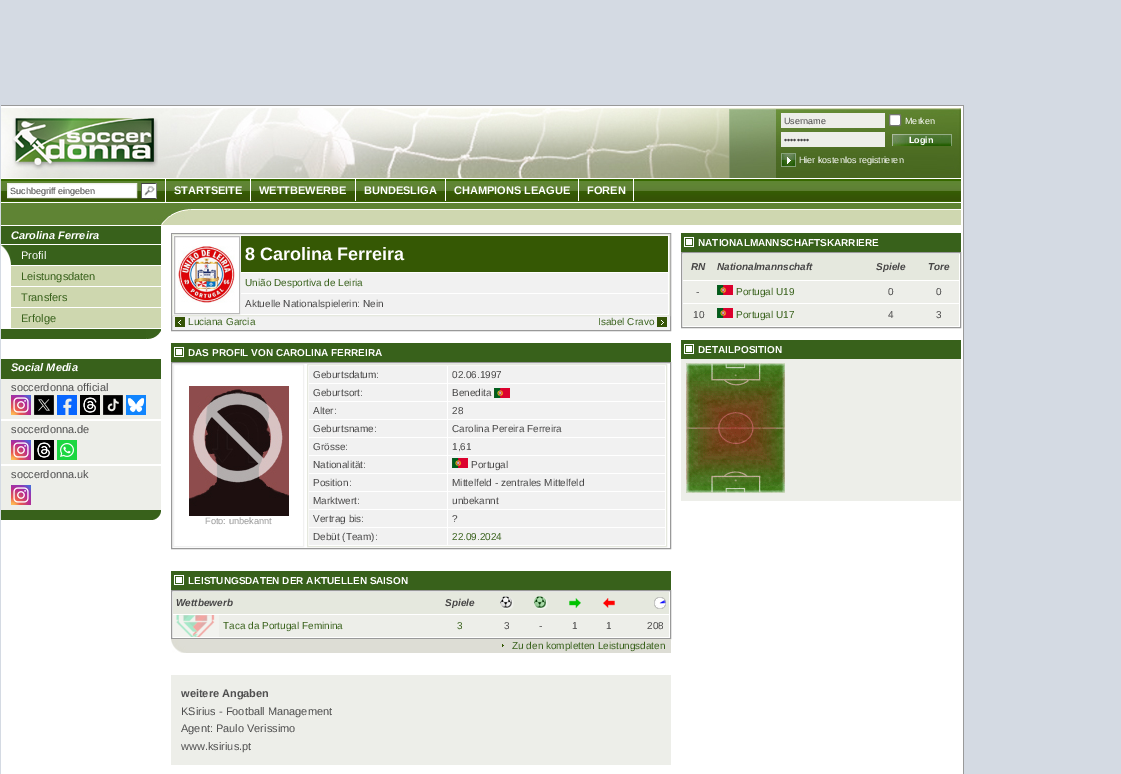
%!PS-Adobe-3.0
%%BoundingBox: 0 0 1121 774
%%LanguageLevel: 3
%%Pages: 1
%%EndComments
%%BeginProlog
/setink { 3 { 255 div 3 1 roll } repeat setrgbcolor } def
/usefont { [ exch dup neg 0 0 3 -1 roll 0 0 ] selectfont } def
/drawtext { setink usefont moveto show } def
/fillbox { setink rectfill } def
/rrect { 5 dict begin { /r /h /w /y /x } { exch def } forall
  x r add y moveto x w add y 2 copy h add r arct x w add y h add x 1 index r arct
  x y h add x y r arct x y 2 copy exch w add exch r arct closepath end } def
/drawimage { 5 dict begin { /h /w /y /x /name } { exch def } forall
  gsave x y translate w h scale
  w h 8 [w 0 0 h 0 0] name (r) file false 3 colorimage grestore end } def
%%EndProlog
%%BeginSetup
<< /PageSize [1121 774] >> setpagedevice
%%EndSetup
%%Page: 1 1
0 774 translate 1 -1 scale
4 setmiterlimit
0 0 1121 774 212 218 227 fillbox
1 106 962 668 255 255 255 fillbox
(assets/img1.rgb) 1 108 960 70 drawimage
(assets/img2.rgb) 12 118 146 52 drawimage
781 113 104 15 237 238 233 fillbox
(Username) 784 124 /LiberationSans-Regular 9 72 71 71 drawtext
255 255 255 setink
889.5 114.5 11 11 1.5 rrect gsave fill grestore
118 118 118 setink
stroke
(Merken) 905 124 /LiberationSans-Regular 9 255 255 255 drawtext
781 132 104 15 237 238 233 fillbox
(••••••••) 784 143 /LiberationSans-Regular 9 72 71 71 drawtext
(assets/img3.rgb) 892 134 60 12 drawimage
(Login) 909 143 /LiberationSans-Bold 9 255 255 255 drawtext
(assets/img4.rgb) 781 153 15 14 drawimage
(Hier kostenlos registrieren) 799 163 /LiberationSans-Regular 9 255 255 255 drawtext
(assets/img5.rgb) 1 179 960 23 drawimage
165 179 1 23 255 255 255 fillbox
7.5 183.5 moveto 136.5 183.5 lineto 136.5 197.5 lineto 7.5 197.5 lineto closepath gsave fill grestore
237 238 233 setink
stroke
(Suchbegriff eingeben) 10 194 /LiberationSans-Regular 9 72 71 71 drawtext
(assets/img6.rgb) 141 183 16 16 drawimage
250 179 1 22 255 255 255 fillbox
(STARTSEITE) 174 194 /LiberationSans-Bold 11 255 255 255 drawtext
355 179 1 22 255 255 255 fillbox
(WETTBEWERBE) 259 194 /LiberationSans-Bold 11 255 255 255 drawtext
445 179 1 22 255 255 255 fillbox
(BUNDESLIGA) 364 194 /LiberationSans-Bold 11 255 255 255 drawtext
578 179 1 22 255 255 255 fillbox
(CHAMPIONS LEAGUE) 454 194 /LiberationSans-Bold 11 255 255 255 drawtext
633 179 1 22 255 255 255 fillbox
(FOREN) 587 194 /LiberationSans-Bold 11 255 255 255 drawtext
(assets/img7.rgb) 1 203 960 22 drawimage
1 105 963 1 153 153 153 fillbox
963 105 1 669 153 153 153 fillbox
1 226 160 18 56 97 27 fillbox
(Carolina Ferreira) 11 239 /LiberationSans-BoldItalic 11 255 255 255 drawtext
11 245 150 20 56 97 27 fillbox
(assets/img8.rgb) 1 245 10 20 drawimage
(Profil) 21 259 /LiberationSans-Regular 11 255 255 255 drawtext
11 266 150 20 206 215 175 fillbox
(Leistungsdaten) 21 280 /LiberationSans-Regular 11 56 97 27 drawtext
11 287 150 20 206 215 175 fillbox
(Transfers) 21 301 /LiberationSans-Regular 11 56 97 27 drawtext
11 308 150 20 206 215 175 fillbox
(Erfolge) 21 322 /LiberationSans-Regular 11 56 97 27 drawtext
1 329 145 10 56 97 27 fillbox
(assets/img9.rgb) 146 329 15 10 drawimage
1 359 160 20 56 97 27 fillbox
(Social Media) 11 371 /LiberationSans-BoldItalic 11 255 255 255 drawtext
1 379 160 40 237 238 233 fillbox
(soccerdonna official) 11 391 /LiberationSans-Regular 11 79 79 79 drawtext
(assets/img10.rgb) 11 395 20 20 drawimage
(assets/img11.rgb) 34 395 20 20 drawimage
(assets/img12.rgb) 57 395 20 20 drawimage
(assets/img13.rgb) 80 395 20 20 drawimage
(assets/img14.rgb) 103 395 20 20 drawimage
(assets/img15.rgb) 126 395 20 20 drawimage
1 421 160 43 237 238 233 fillbox
(soccerdonna.de) 11 433 /LiberationSans-Regular 11 79 79 79 drawtext
(assets/img10.rgb) 11 440 20 20 drawimage
(assets/img16.rgb) 34 440 20 20 drawimage
(assets/img17.rgb) 57 440 20 20 drawimage
1 466 160 44 237 238 233 fillbox
(soccerdonna.uk) 11 478 /LiberationSans-Regular 11 79 79 79 drawtext
(assets/img10.rgb) 11 485 20 20 drawimage
56 97 27 setink
1 510 moveto 161 510 lineto 161 515.5 156.5 520 151 520 curveto 1 520 lineto closepath fill
172 316 498 14 241 241 241 fillbox
153 153 153 setink
171.5 233.5 499 97 rectstroke
229 232 222 setink
172.5 234.5 497 81 rectstroke
187 187 187 setink
174.5 236.5 65 77 rectstroke
(assets/img18.rgb) 178 246 57 57 drawimage
241 236 427 36 53 88 4 fillbox
(8 Carolina Ferreira) 245 260 /LiberationSans-Bold 18 255 255 255 drawtext
241 273 427 20 241 241 241 fillbox
(União Desportiva de Leiria) 245 286 /LiberationSans-Regular 10 56 97 27 drawtext
241 294 427 20 241 241 241 fillbox
(Aktuelle Nationalspielerin: Nein) 245 307 /LiberationSans-Regular 10 72 71 71 drawtext
(assets/img19.rgb) 175 317 10 10 drawimage
(Luciana Garcia) 188 325 /LiberationSans-Regular 10 56 97 27 drawtext
(Isabel Cravo) 598 325 /LiberationSans-Regular 10 56 97 27 drawtext
(assets/img20.rgb) 657 317 10 10 drawimage
171 343 500 19 56 97 27 fillbox
(assets/img21.rgb) 174 347 10 10 drawimage
(DAS PROFIL VON CAROLINA FERREIRA) 188 356 /LiberationSans-Bold 10 255 255 255 drawtext
153 153 153 setink
171.5 362.5 499 186 rectstroke
241 241 241 setink
173.5 364.5 130 182 rectstroke
(assets/img22.rgb) 189 386 100 130 drawimage
(Foto: unbekannt) 205 524 /LiberationSans-Regular 9.25 153 153 153 drawtext
229 232 222 setink
307.5 364.5 359 182 rectstroke
309 366 138 17 241 241 241 fillbox
(Geburtsdatum:) 313 378 /LiberationSans-Regular 10 72 71 71 drawtext
448 366 217 17 241 241 241 fillbox
(02.06.1997) 452 378 /LiberationSans-Regular 10 72 71 71 drawtext
309 384 138 17 241 241 241 fillbox
(Geburtsort:) 313 396 /LiberationSans-Regular 10 72 71 71 drawtext
448 384 217 17 241 241 241 fillbox
(Benedita) 452 396 /LiberationSans-Regular 10 72 71 71 drawtext
(assets/img23.rgb) 494 388 16 10 drawimage
309 402 138 17 241 241 241 fillbox
(Alter:) 313 414 /LiberationSans-Regular 10 72 71 71 drawtext
448 402 217 17 241 241 241 fillbox
(28) 452 414 /LiberationSans-Regular 10 72 71 71 drawtext
309 420 138 17 241 241 241 fillbox
(Geburtsname:) 313 432 /LiberationSans-Regular 10 72 71 71 drawtext
448 420 217 17 241 241 241 fillbox
(Carolina Pereira Ferreira) 452 432 /LiberationSans-Regular 10 72 71 71 drawtext
309 438 138 17 241 241 241 fillbox
(Grösse:) 313 450 /LiberationSans-Regular 10 72 71 71 drawtext
448 438 217 17 241 241 241 fillbox
(1,61) 452 450 /LiberationSans-Regular 10 72 71 71 drawtext
309 456 138 17 241 241 241 fillbox
(Nationalität:) 313 468 /LiberationSans-Regular 10 72 71 71 drawtext
448 456 217 17 241 241 241 fillbox
(assets/img23.rgb) 452 458 16 10 drawimage
(Portugal) 471 468 /LiberationSans-Regular 10 72 71 71 drawtext
309 474 138 17 241 241 241 fillbox
(Position:) 313 486 /LiberationSans-Regular 10 72 71 71 drawtext
448 474 217 17 241 241 241 fillbox
(Mittelfeld - zentrales Mittelfeld) 452 486 /LiberationSans-Regular 10 72 71 71 drawtext
309 492 138 17 241 241 241 fillbox
(Marktwert:) 313 504 /LiberationSans-Regular 10 72 71 71 drawtext
448 492 217 17 241 241 241 fillbox
(unbekannt) 452 504 /LiberationSans-Regular 10 72 71 71 drawtext
309 510 138 17 241 241 241 fillbox
(Vertrag bis:) 313 522 /LiberationSans-Regular 10 72 71 71 drawtext
448 510 217 17 241 241 241 fillbox
(?) 452 522 /LiberationSans-Regular 10 72 71 71 drawtext
309 528 138 17 241 241 241 fillbox
(Debüt \(Team\):) 313 540 /LiberationSans-Regular 10 72 71 71 drawtext
448 528 217 17 241 241 241 fillbox
(22.09.2024) 452 540 /LiberationSans-Regular 10 56 97 27 drawtext
681 233 280 19 56 97 27 fillbox
(assets/img21.rgb) 684 237 10 10 drawimage
(NATIONALMANNSCHAFTSKARRIERE) 698 246 /LiberationSans-Bold 10 255 255 255 drawtext
153 153 153 setink
681.5 252.5 279 75 rectstroke
683 254 276 26 229 232 222 fillbox
(RN) 691 270 /LiberationSans-BoldItalic 10 72 71 71 drawtext
(Nationalmannschaft) 717 270 /LiberationSans-BoldItalic 10 72 71 71 drawtext
(Spiele) 876 270 /LiberationSans-BoldItalic 10 72 71 71 drawtext
(Tore) 928 270 /LiberationSans-BoldItalic 10 72 71 71 drawtext
683 281 276 22 237 238 233 fillbox
(-) 696 295 /LiberationSans-Regular 10 72 71 71 drawtext
(assets/img23.rgb) 717 285 16 10 drawimage
(Portugal U19) 736 295 /LiberationSans-Regular 10 56 97 27 drawtext
(0) 888 295 /LiberationSans-Regular 10 72 71 71 drawtext
(0) 936 295 /LiberationSans-Regular 10 72 71 71 drawtext
683 304 276 22 237 238 233 fillbox
(10) 693 318 /LiberationSans-Regular 10 72 71 71 drawtext
(assets/img23.rgb) 717 308 16 10 drawimage
(Portugal U17) 736 318 /LiberationSans-Regular 10 56 97 27 drawtext
(4) 888 318 /LiberationSans-Regular 10 72 71 71 drawtext
(3) 936 318 /LiberationSans-Regular 10 72 71 71 drawtext
681 340 280 19 56 97 27 fillbox
(assets/img21.rgb) 684 344 10 10 drawimage
(DETAILPOSITION) 698 353 /LiberationSans-Bold 10 255 255 255 drawtext
681 359 280 142 237 238 233 fillbox
(assets/img24.rgb) 686 363 99 130 drawimage
171 571 500 19 56 97 27 fillbox
(assets/img21.rgb) 174 575 10 10 drawimage
(LEISTUNGSDATEN DER AKTUELLEN SAISON) 188 584 /LiberationSans-Bold 10 255 255 255 drawtext
153 153 153 setink
171.5 590.5 499 48 rectstroke
173 592 496 22 229 232 222 fillbox
(Wettbewerb) 176 606 /LiberationSans-BoldItalic 10 72 71 71 drawtext
(Spiele) 445 606 /LiberationSans-BoldItalic 10 72 71 71 drawtext
(assets/img25.rgb) 500 596 14 14 drawimage
(assets/img26.rgb) 534 596 14 14 drawimage
(assets/img27.rgb) 569 598 12 10 drawimage
(assets/img28.rgb) 603 598 12 10 drawimage
(assets/img29.rgb) 654 597 12 12 drawimage
219 615 450 22 237 238 233 fillbox
(assets/img30.rgb) 173 615 46 22 drawimage
(Taca da Portugal Feminina) 223 629 /LiberationSans-Regular 10 56 97 27 drawtext
(3) 457 629 /LiberationSans-Regular 10 56 97 27 drawtext
(3) 504 629 /LiberationSans-Regular 10 72 71 71 drawtext
(-) 539 629 /LiberationSans-Regular 10 72 71 71 drawtext
(1) 572 629 /LiberationSans-Regular 10 72 71 71 drawtext
(1) 606 629 /LiberationSans-Regular 10 72 71 71 drawtext
(208) 647 629 /LiberationSans-Regular 10 72 71 71 drawtext
171 639 500 14 221 221 213 fillbox
(assets/img31.rgb) 171 640 15 13 drawimage
(assets/img32.rgb) 502 644 2 3 drawimage
(Zu den kompletten Leistungsdaten) 512 649 /LiberationSans-Regular 10 56 97 27 drawtext
171 675 500 90 237 238 233 fillbox
(weitere Angaben) 181 697 /LiberationSans-Bold 11 79 79 79 drawtext
(KSirius - Football Management) 181 715 /LiberationSans-Regular 11 79 79 79 drawtext
(Agent: Paulo Verissimo) 181 732 /LiberationSans-Regular 11 79 79 79 drawtext
(www.ksirius.pt) 181 750 /LiberationSans-Regular 11 79 79 79 drawtext
showpage
%%EOF
